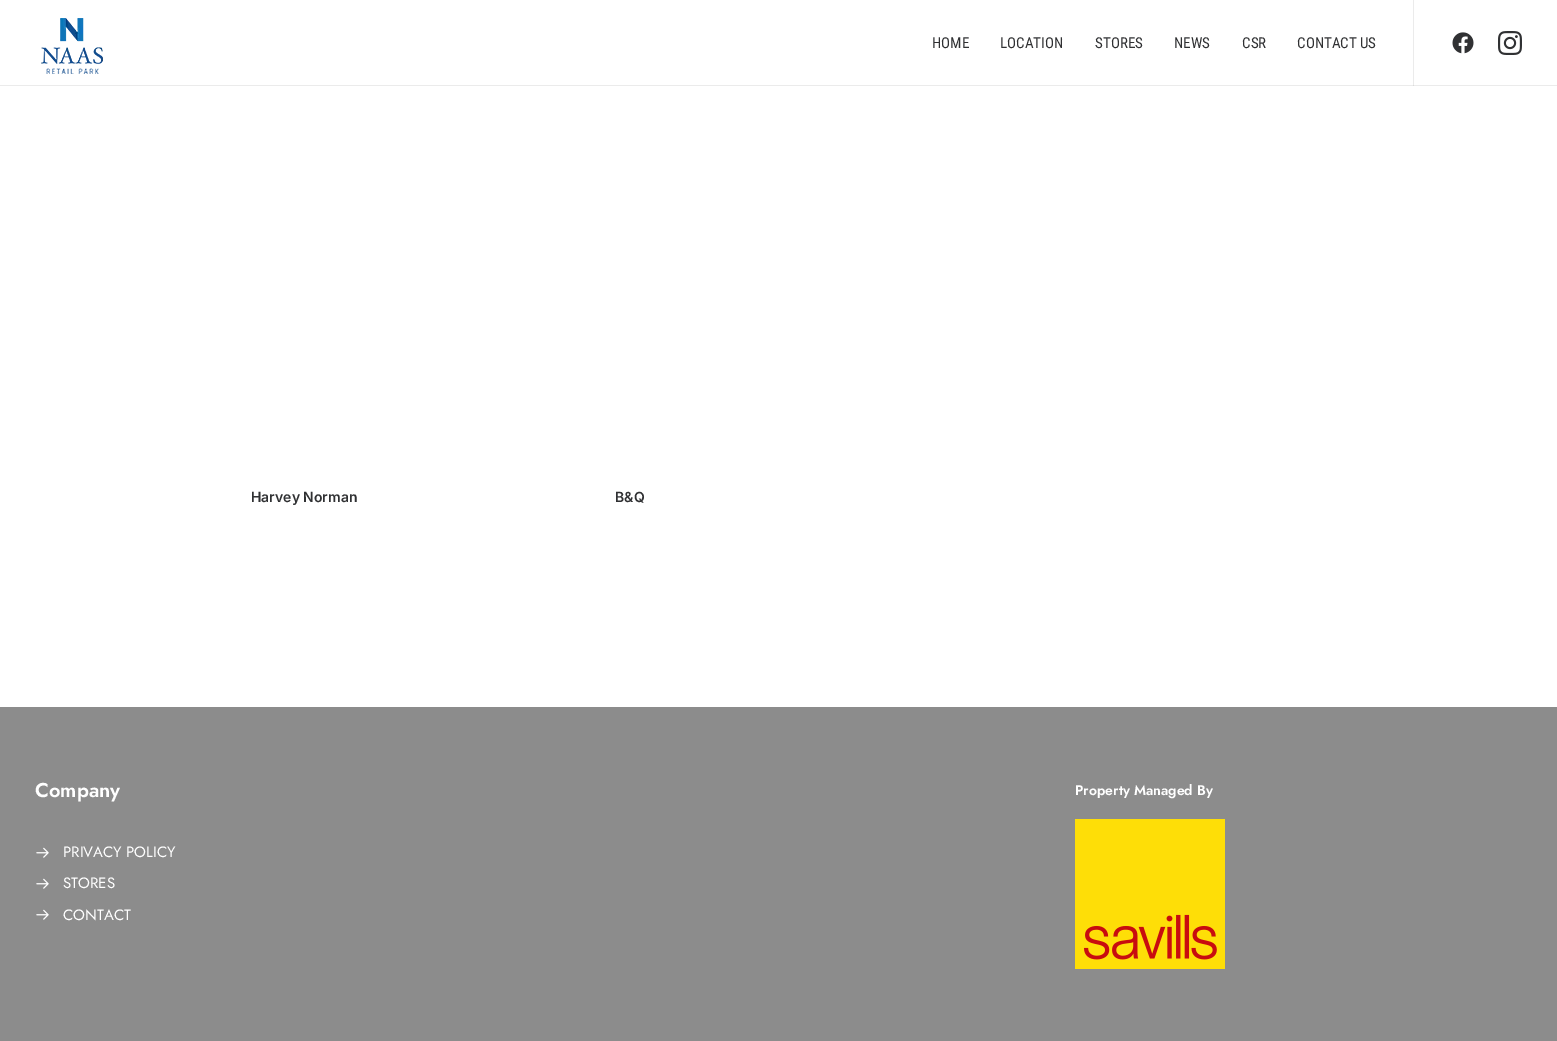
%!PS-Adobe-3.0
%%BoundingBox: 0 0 1557 1041
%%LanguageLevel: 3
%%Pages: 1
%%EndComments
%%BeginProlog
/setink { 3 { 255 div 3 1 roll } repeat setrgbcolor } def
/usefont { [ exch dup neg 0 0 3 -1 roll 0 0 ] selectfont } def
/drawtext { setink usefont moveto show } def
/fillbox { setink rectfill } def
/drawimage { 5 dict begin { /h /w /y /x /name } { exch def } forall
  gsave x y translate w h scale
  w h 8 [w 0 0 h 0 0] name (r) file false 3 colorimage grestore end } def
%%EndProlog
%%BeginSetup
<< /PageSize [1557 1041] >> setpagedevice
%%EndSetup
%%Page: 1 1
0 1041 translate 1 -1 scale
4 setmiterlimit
0 0 1557 1041 255 255 255 fillbox
(assets/img1.rgb) 41 18 62 56 drawimage
(HOME) 932 48 /RobotoCondensed-Regular 15 48 49 51 drawtext
(LOCATION) 1000 48 /RobotoCondensed-Regular 15 48 49 51 drawtext
(STORES) 1095 48 /RobotoCondensed-Regular 15 48 49 51 drawtext
(NEWS) 1174 48 /RobotoCondensed-Regular 15 48 49 51 drawtext
(CSR) 1242 48 /RobotoCondensed-Regular 15 48 49 51 drawtext
(CONTACT US) 1297 48 /RobotoCondensed-Regular 15 48 49 51 drawtext
(assets/img2.rgb) 1452 32 22 22 drawimage
(assets/img3.rgb) 1498 31 24 24 drawimage
1413 0 1 86 235 235 235 fillbox
0 85 1557 1 235 235 235 fillbox
1413 85 1 1 218 218 218 fillbox
(Harvey Norman) 251 502 /Inter-SemiBold 14 48 49 51 drawtext
(B&Q) 615 502 /Inter-SemiBold 14 48 49 51 drawtext
0 707 1557 334 140 140 140 fillbox
(Company) 35 797 /Jost-SemiBold 20 255 255 255 drawtext
(assets/img4.rgb) 36 847 13 11 drawimage
(PRIVACY POLICY) 63 857 /Jost-Regular 15 255 255 255 drawtext
(assets/img4.rgb) 36 878 13 11 drawimage
(STORES) 63 888 /Jost-Regular 15 255 255 255 drawtext
(assets/img4.rgb) 36 909 13 11 drawimage
(CONTACT) 63 920 /Jost-Regular 15 255 255 255 drawtext
(Property Managed By) 1075 795 /Jost-SemiBold 14 255 255 255 drawtext
(assets/img5.rgb) 1075 819 150 150 drawimage
showpage
%%EOF
